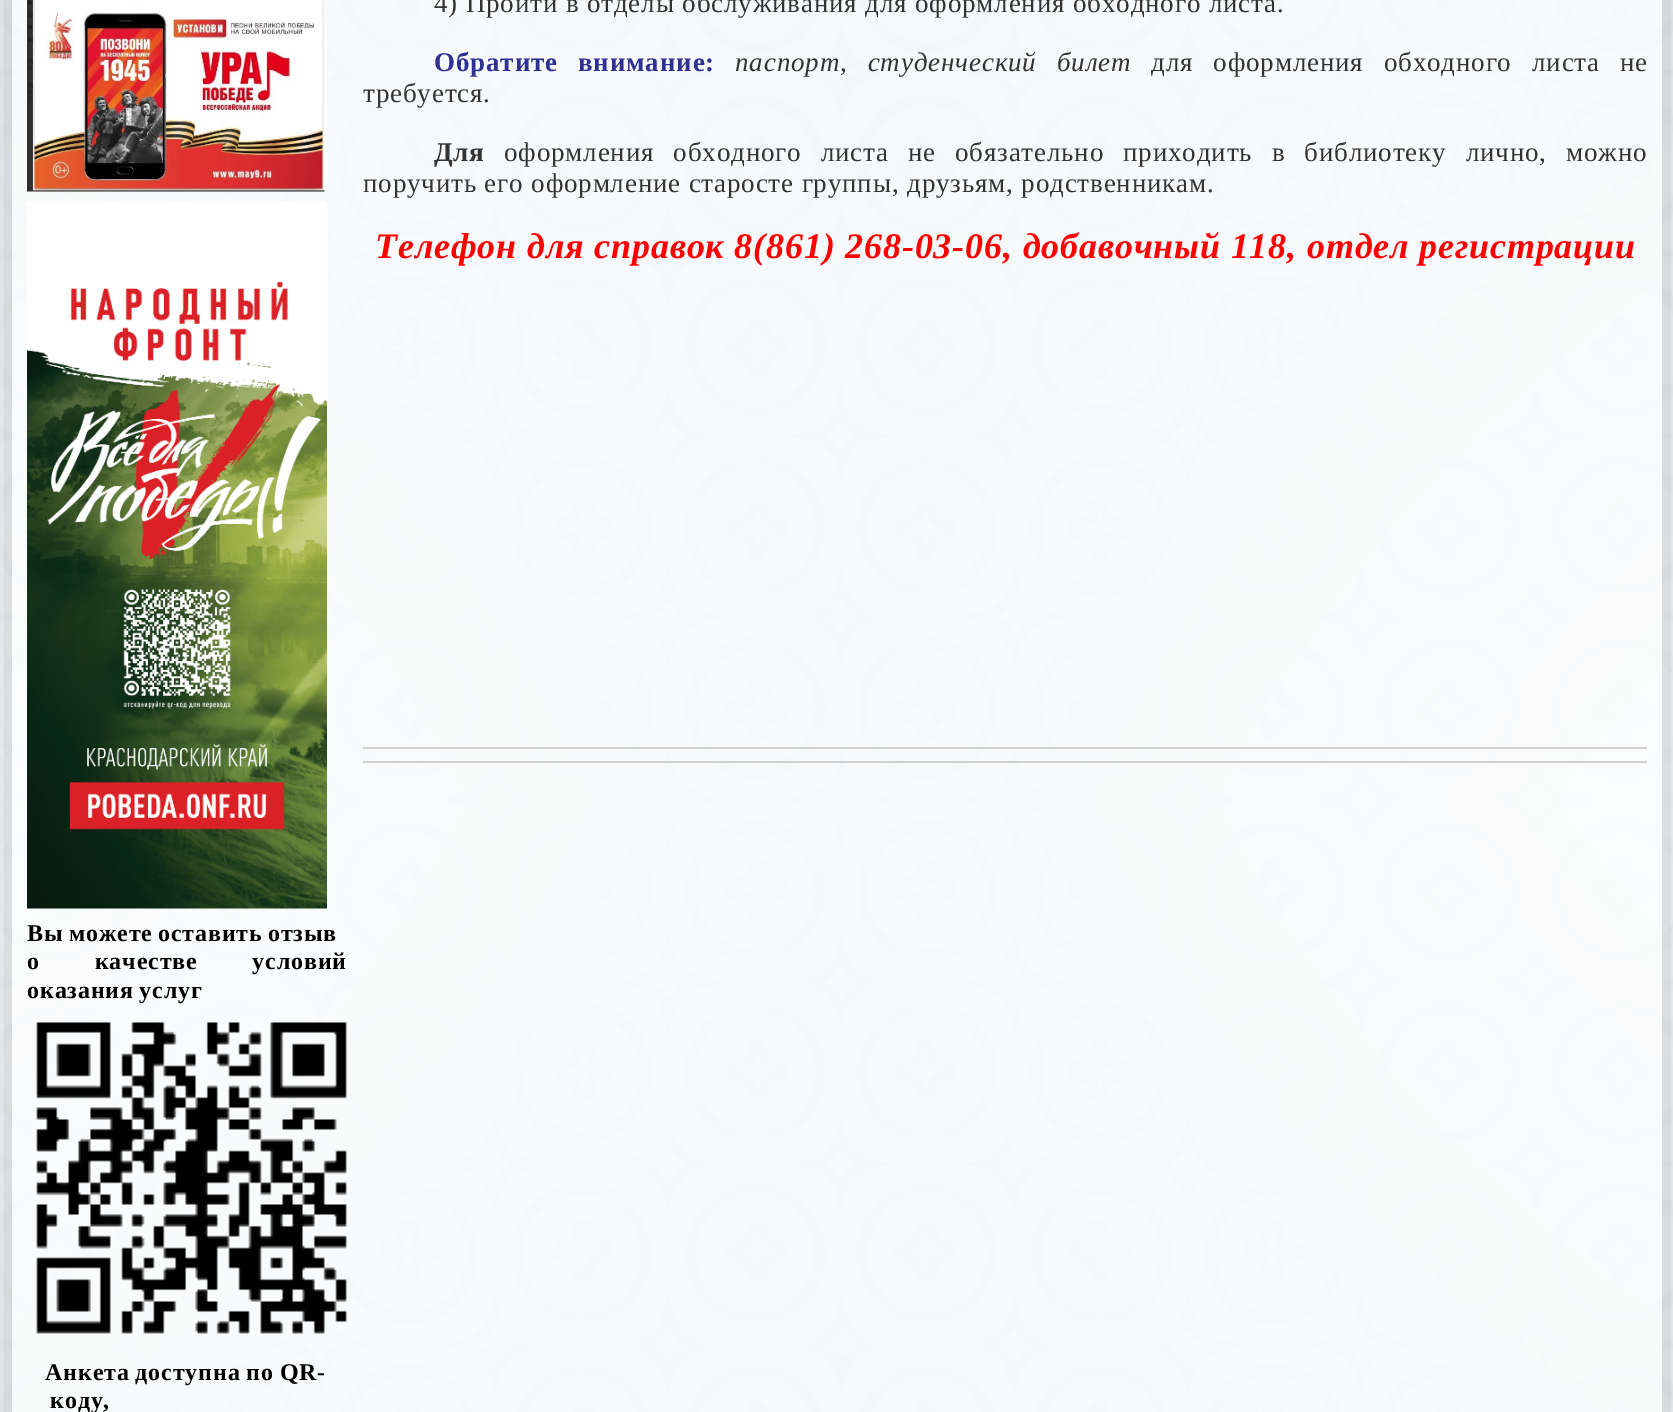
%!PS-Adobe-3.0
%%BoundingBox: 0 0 1673 1412
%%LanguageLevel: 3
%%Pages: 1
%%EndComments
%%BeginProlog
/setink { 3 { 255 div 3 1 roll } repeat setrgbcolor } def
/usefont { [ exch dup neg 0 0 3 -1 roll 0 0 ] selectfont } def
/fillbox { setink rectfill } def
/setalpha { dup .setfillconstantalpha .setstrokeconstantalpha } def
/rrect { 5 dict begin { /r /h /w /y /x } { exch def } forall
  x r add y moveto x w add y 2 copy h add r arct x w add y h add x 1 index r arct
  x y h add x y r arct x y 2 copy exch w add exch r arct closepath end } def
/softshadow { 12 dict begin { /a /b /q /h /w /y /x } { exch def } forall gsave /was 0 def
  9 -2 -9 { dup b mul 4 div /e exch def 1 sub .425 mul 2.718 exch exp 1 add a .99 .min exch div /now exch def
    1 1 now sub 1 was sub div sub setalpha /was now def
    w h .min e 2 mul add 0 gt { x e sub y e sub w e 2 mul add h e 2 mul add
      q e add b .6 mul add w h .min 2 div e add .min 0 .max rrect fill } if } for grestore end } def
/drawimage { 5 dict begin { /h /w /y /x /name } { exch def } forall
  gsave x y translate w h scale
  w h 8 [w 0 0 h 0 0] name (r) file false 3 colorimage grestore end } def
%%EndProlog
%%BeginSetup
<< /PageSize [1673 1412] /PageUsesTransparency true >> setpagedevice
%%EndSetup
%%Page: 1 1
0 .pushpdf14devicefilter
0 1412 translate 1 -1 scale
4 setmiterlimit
0 0 1673 1412 255 255 255 fillbox
(assets/img1.rgb) 0 0 1673 1412 drawimage
gsave
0 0 moveto 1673 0 lineto 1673 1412 lineto 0 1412 lineto closepath 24 -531 moveto 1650 -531 lineto 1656.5 -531 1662 -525.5 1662 -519 curveto 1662 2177 lineto 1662 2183.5 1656.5 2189 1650 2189 curveto 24 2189 lineto 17.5 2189 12 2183.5 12 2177 curveto 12 -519 lineto 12 -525.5 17.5 -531 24 -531 curveto closepath eoclip newpath
0 0 0 setink
11 -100 1653 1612 14 28.5 0.2 softshadow
grestore
/LiberationSerif-Regular 27 usefont
51 51 51 setink
434 12 moveto 0.85 0 (4\) Пройти в отделы обслуживания для оформления обходного листа.) ashow
/LiberationSerif-Bold 27 usefont
47 49 146 setink
434 71 moveto 12.5 0 32 0.85 0 (Обратите внимание:) awidthshow
/LiberationSerif-Italic 27 usefont
51 51 51 setink
735 71 moveto 12.5 0 32 0.85 0 (паспорт, студенческий билет) awidthshow
/LiberationSerif-Regular 27 usefont
1151 71 moveto 12.5 0 32 0.85 0 (для оформления обходного листа не) awidthshow
363 102 moveto 0.85 0 (требуется.) ashow
/LiberationSerif-Bold 27 usefont
434 161 moveto 0.85 0 (Для) ashow
/LiberationSerif-Regular 27 usefont
504 161 moveto 11.5 0 32 0.85 0 (оформления обходного листа не обязательно приходить в библиотеку лично, можно) awidthshow
363 192 moveto 0.85 0 (поручить его оформление старосте группы, друзьям, родственникам.) ashow
/LiberationSerif-BoldItalic 36 usefont
255 0 0 setink
375 258 moveto 0.85 0 (Телефон для справок 8\(861\) 268-03-06, добавочный 118, отдел регистрации) ashow
363 747 1284 2 209 208 208 fillbox
363 761 1284 2 209 208 208 fillbox
(assets/img2.rgb) 27 0 300 192 drawimage
(assets/img3.rgb) 27 202 300 707 drawimage
/LiberationSerif-Bold 24 usefont
0 0 0 setink
27 941 moveto -1.5 0 32 0.85 0 (Вы можете оставить отзыв) awidthshow
27 969 moveto 48 0 32 0.85 0 (о качестве условий) awidthshow
27 998 moveto -1.5 0 32 0.85 0 (оказания услуг) awidthshow
(assets/img4.rgb) 36 1022 311 312 drawimage
45 1380 moveto -1 0 32 0.85 0 (Анкета доступна по QR-) awidthshow
50 1408 moveto 0.85 0 (коду,) ashow
.poppdf14devicefilter showpage
%%EOF
